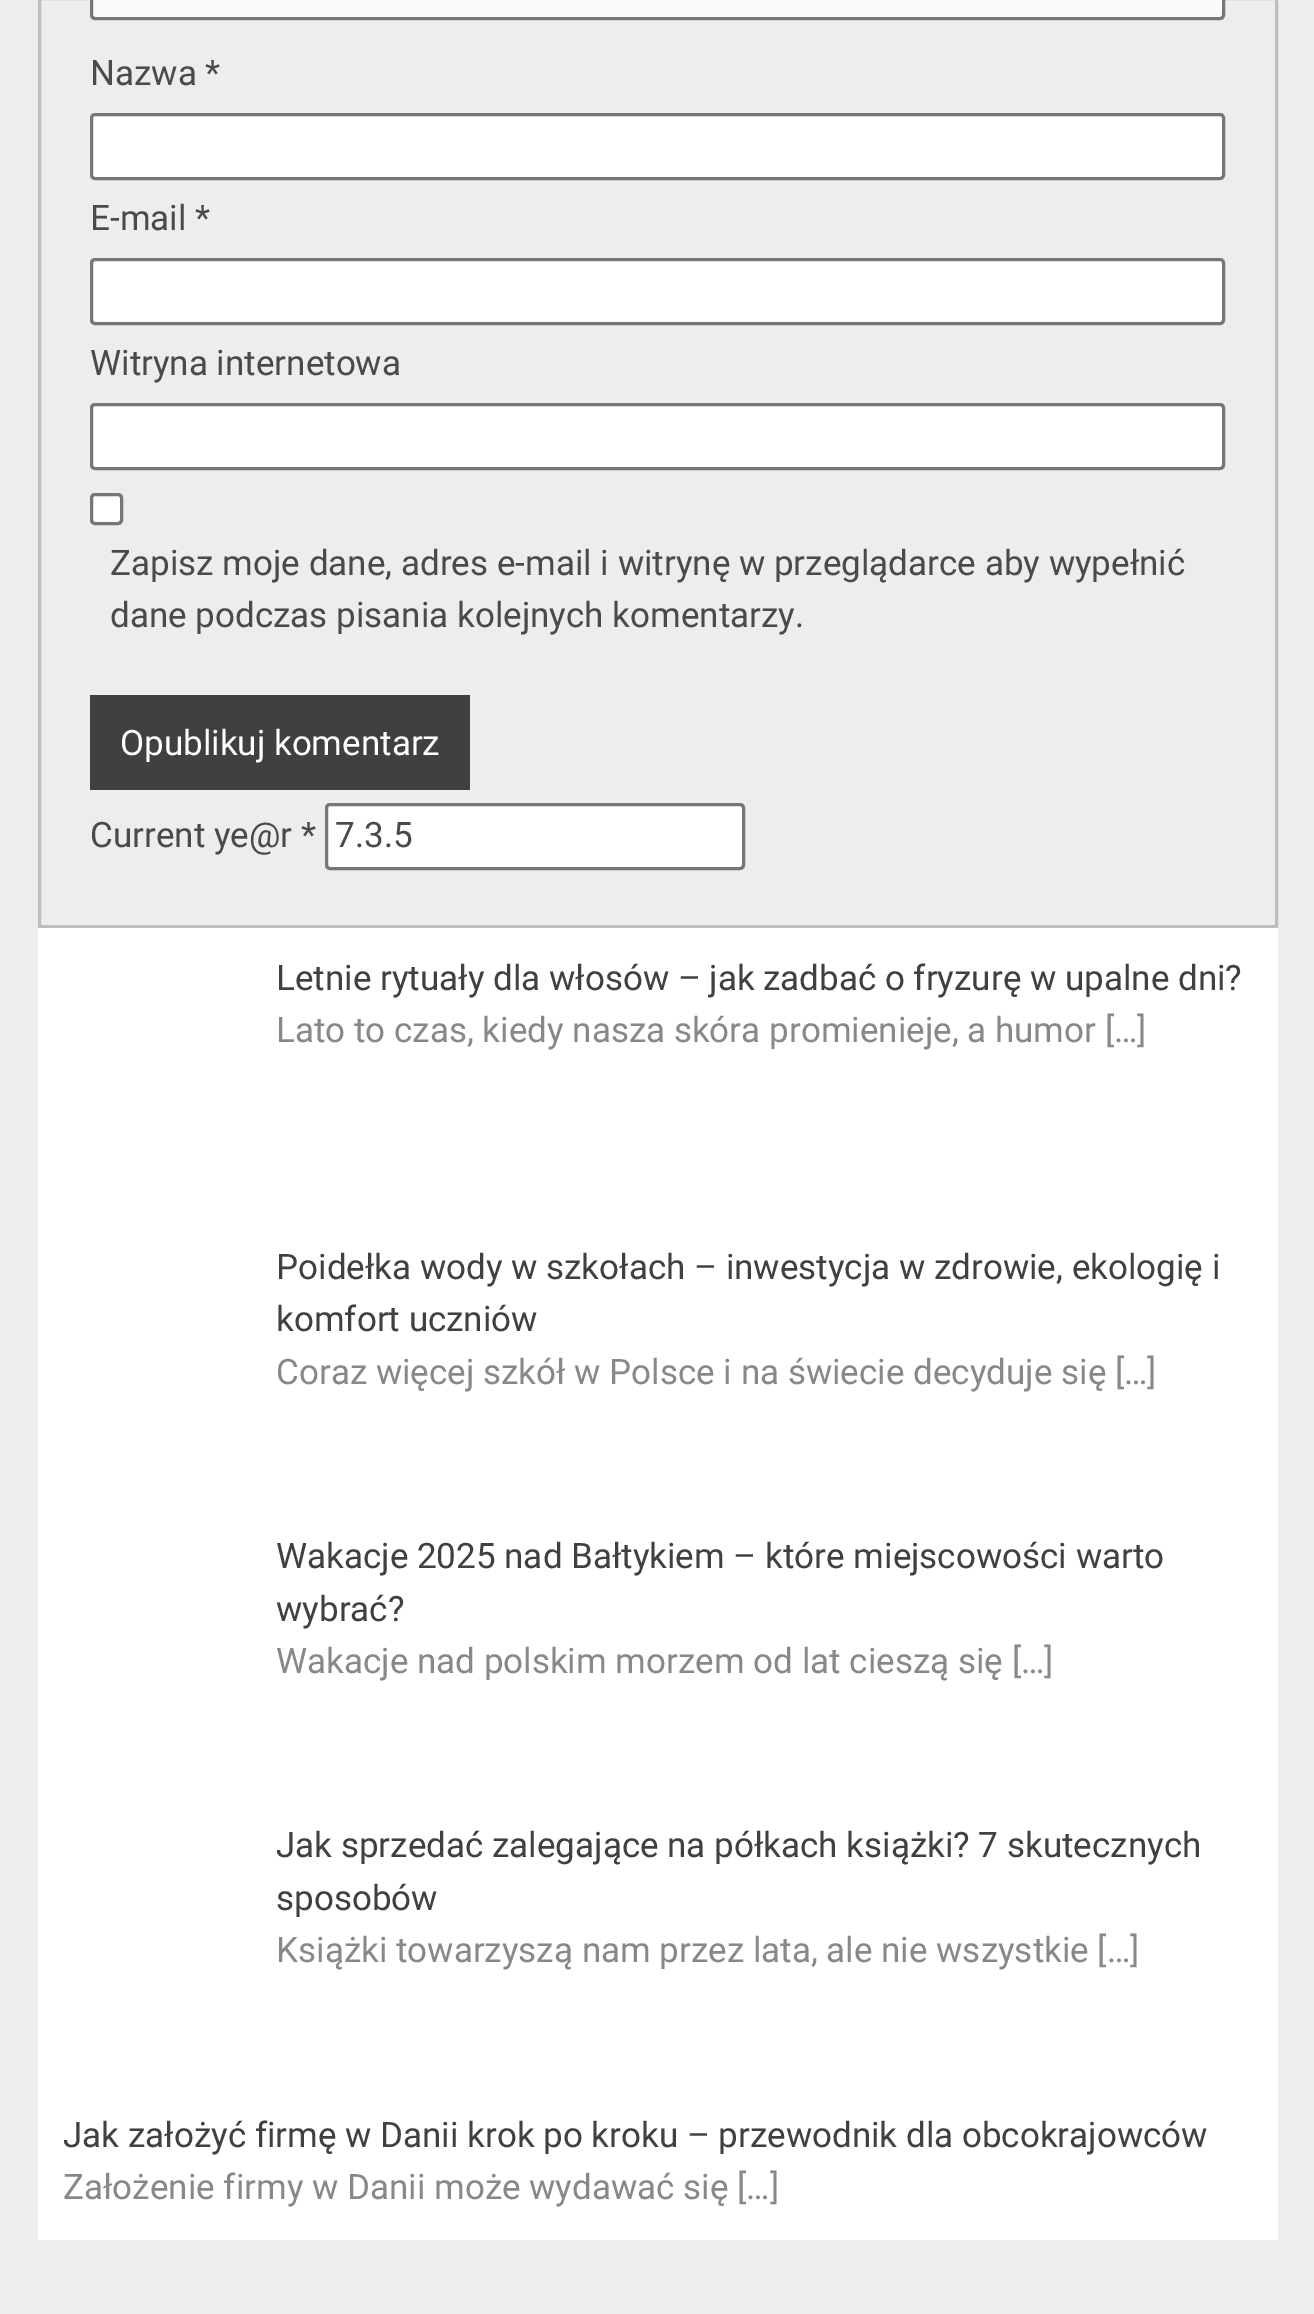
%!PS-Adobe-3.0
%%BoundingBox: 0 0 1314 2314
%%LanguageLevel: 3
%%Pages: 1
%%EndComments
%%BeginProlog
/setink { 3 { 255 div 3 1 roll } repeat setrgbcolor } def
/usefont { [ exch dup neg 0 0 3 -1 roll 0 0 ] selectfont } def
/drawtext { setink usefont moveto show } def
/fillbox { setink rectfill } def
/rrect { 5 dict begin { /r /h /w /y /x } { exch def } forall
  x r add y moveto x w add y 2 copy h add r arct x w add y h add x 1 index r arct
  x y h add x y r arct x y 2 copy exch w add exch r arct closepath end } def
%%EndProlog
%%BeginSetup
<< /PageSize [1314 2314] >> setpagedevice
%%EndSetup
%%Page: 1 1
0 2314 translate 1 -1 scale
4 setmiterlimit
0 0 1314 2314 237 237 237 fillbox
189 189 189 setink
3 setlinewidth
39.5 -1.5 1237 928 rectstroke
250 250 250 setink
91.5 -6.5 1132 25 3.5 rrect gsave fill grestore
118 118 118 setink
stroke
(Nazwa *) 90 85 /Roboto-Regular 35 74 74 74 drawtext
255 255 255 setink
91.5 114.5 1132 64 3.5 rrect gsave fill grestore
118 118 118 setink
stroke
(E-mail *) 90 230 /Roboto-Regular 35 74 74 74 drawtext
255 255 255 setink
91.5 259.5 1132 64 3.5 rrect gsave fill grestore
118 118 118 setink
stroke
(Witryna internetowa) 90 375 /Roboto-Regular 35 74 74 74 drawtext
255 255 255 setink
91.5 404.5 1132 64 3.5 rrect gsave fill grestore
118 118 118 setink
stroke
255 255 255 setink
91.5 494.5 30 29 3.5 rrect gsave fill grestore
118 118 118 setink
stroke
(Zapisz moje dane, adres e-mail i witrynę w przeglądarce aby wypełnić) 110 575 /Roboto-Regular 35 74 74 74 drawtext
(dane podczas pisania kolejnych komentarzy.) 110 627 /Roboto-Regular 35 74 74 74 drawtext
90 695 380 95 64 64 64 fillbox
(Opublikuj komentarz) 120 755 /Roboto-Regular 35 255 255 255 drawtext
(Current ye@r *) 90 847 /Roboto-Regular 35 74 74 74 drawtext
255 255 255 setink
326.5 804.5 417 64 3.5 rrect gsave fill grestore
118 118 118 setink
stroke
(7.3.5) 335 847 /Roboto-Regular 35 74 74 74 drawtext
38 928 1240 1312 255 255 255 fillbox
(Letnie rytuały dla włosów – jak zadbać o fryzurę w upalne dni?) 276 990 /Roboto-Regular 35 64 64 64 drawtext
(Lato to czas, kiedy nasza skóra promienieje, a humor […]) 276 1042 /Roboto-Regular 35 136 136 136 drawtext
(Poidełka wody w szkołach – inwestycja w zdrowie, ekologię i) 276 1279 /Roboto-Regular 35 64 64 64 drawtext
(komfort uczniów) 276 1331 /Roboto-Regular 35 64 64 64 drawtext
(Coraz więcej szkół w Polsce i na świecie decyduje się […]) 276 1384 /Roboto-Regular 35 136 136 136 drawtext
(Wakacje 2025 nad Bałtykiem – które miejscowości warto) 276 1568 /Roboto-Regular 35 64 64 64 drawtext
(wybrać?) 276 1621 /Roboto-Regular 35 64 64 64 drawtext
(Wakacje nad polskim morzem od lat cieszą się […]) 276 1673 /Roboto-Regular 35 136 136 136 drawtext
(Jak sprzedać zalegające na półkach książki? 7 skutecznych) 276 1857 /Roboto-Regular 35 64 64 64 drawtext
(sposobów) 276 1910 /Roboto-Regular 35 64 64 64 drawtext
(Książki towarzyszą nam przez lata, ale nie wszystkie […]) 276 1962 /Roboto-Regular 35 136 136 136 drawtext
(Jak założyć firmę w Danii krok po kroku – przewodnik dla obcokrajowców) 63 2147 /Roboto-Regular 35 64 64 64 drawtext
(Założenie firmy w Danii może wydawać się […]) 63 2199 /Roboto-Regular 35 136 136 136 drawtext
showpage
%%EOF
